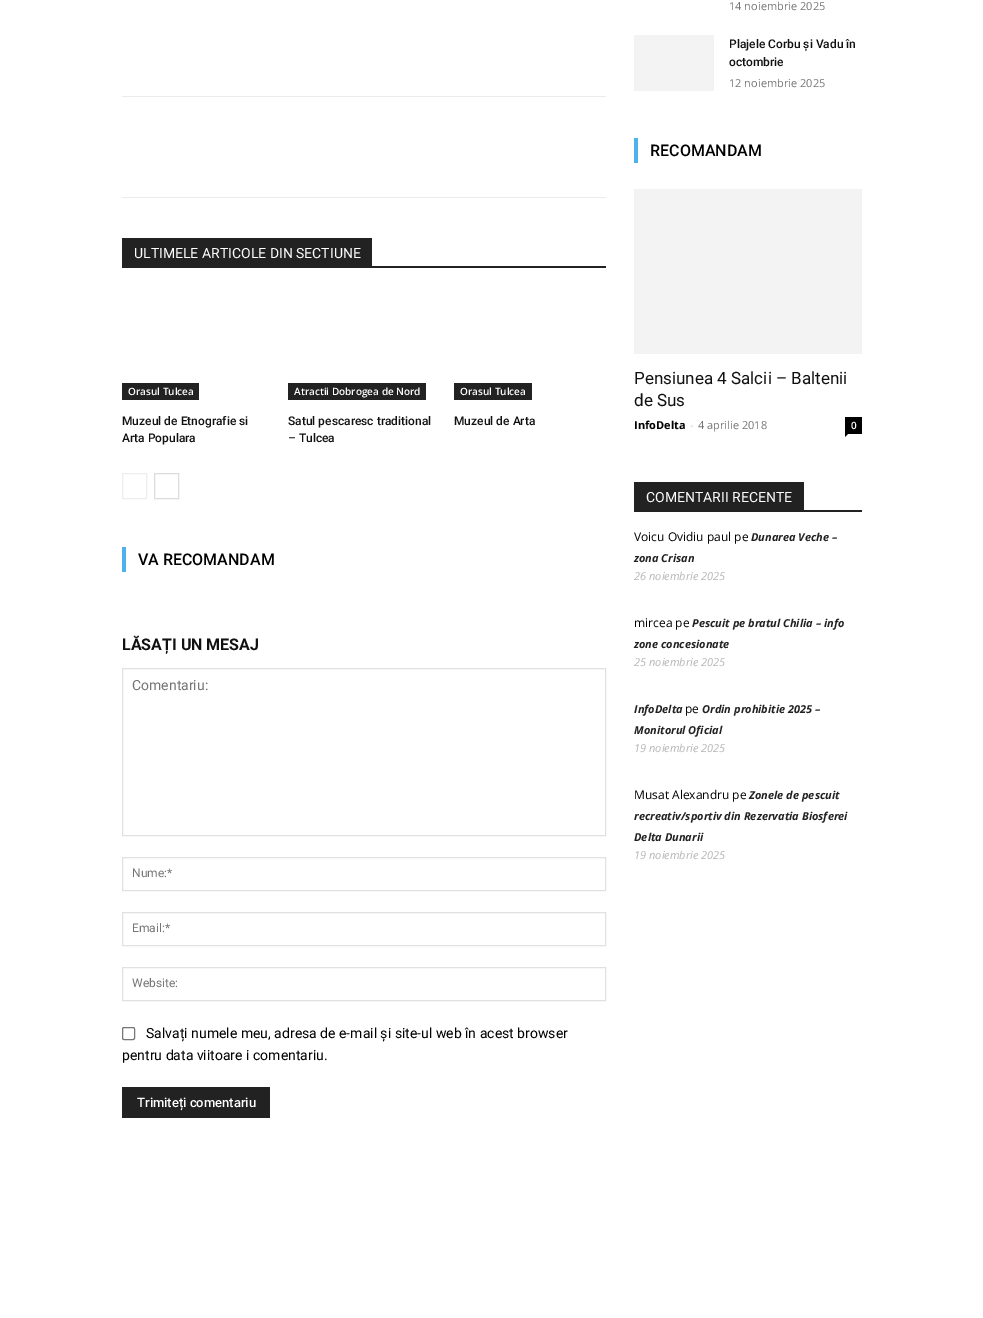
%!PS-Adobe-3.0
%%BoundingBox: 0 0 983 1318
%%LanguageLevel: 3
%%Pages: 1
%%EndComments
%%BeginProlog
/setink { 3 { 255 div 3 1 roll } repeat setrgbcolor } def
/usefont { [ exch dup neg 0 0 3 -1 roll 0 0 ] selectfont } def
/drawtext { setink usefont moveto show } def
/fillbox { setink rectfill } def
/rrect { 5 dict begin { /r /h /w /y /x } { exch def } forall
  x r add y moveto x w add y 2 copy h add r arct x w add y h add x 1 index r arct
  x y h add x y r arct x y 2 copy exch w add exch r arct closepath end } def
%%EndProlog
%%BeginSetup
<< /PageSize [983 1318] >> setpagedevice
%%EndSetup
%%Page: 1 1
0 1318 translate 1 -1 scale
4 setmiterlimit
0 0 983 1318 255 255 255 fillbox
122 96 484 1 235 235 235 fillbox
122 197 484 1 235 235 235 fillbox
122 266 484 2 34 34 34 fillbox
122 238 250 28 34 34 34 fillbox
(ULTIMELE ARTICOLE DIN SECTIUNE) 134 258 /Roboto-Regular 14 255 255 255 drawtext
122 383 77 17 34 34 34 fillbox
(Orasul Tulcea) 128 395 /OpenSans-SemiBold 10 255 255 255 drawtext
(Muzeul de Etnografie si) 122 425 /Roboto-Medium 12 17 17 17 drawtext
(Arta Populara) 122 442 /Roboto-Medium 12 17 17 17 drawtext
288 383 138 17 34 34 34 fillbox
(Atractii Dobrogea de Nord) 294 395 /OpenSans-SemiBold 10 255 255 255 drawtext
(Satul pescaresc traditional) 288 425 /Roboto-Medium 12 17 17 17 drawtext
(– Tulcea) 288 442 /Roboto-Medium 12 17 17 17 drawtext
454 383 78 17 34 34 34 fillbox
(Orasul Tulcea) 460 395 /OpenSans-SemiBold 10 255 255 255 drawtext
(Muzeul de Arta) 454 425 /Roboto-Medium 12 17 17 17 drawtext
238 238 238 setink
122.5 473.5 24 25 rectstroke
220 220 220 setink
154.5 473.5 24 25 rectstroke
122 547 4 25 77 178 236 fillbox
(VA RECOMANDAM) 138 565 /Roboto-Medium 16 0 0 0 drawtext
(LĂSAȚI UN MESAJ) 122 650 /Roboto-Bold 16 17 17 17 drawtext
225 225 225 setink
122.5 668.5 483 167 rectstroke
(Comentariu:) 132 690 /Roboto-Regular 14 117 117 117 drawtext
225 225 225 setink
122.5 857.5 483 33 rectstroke
(Nume:*) 132 877 /Roboto-Regular 12 117 117 117 drawtext
225 225 225 setink
122.5 912.5 483 33 rectstroke
(Email:*) 132 932 /Roboto-Regular 12 117 117 117 drawtext
225 225 225 setink
122.5 967.5 483 33 rectstroke
(Website:) 132 987 /Roboto-Regular 12 117 117 117 drawtext
118 118 118 setink
122.5 1027.5 12 12 1.5 rrect stroke
(Salvați numele meu, adresa de e-mail și site-ul web în acest browser) 146 1038 /Roboto-Regular 14 0 0 0 drawtext
(pentru data viitoare i comentariu.) 122 1060 /Roboto-Regular 14 0 0 0 drawtext
122 1087 148 31 34 34 34 fillbox
(Trimiteți comentariu) 137 1107 /Roboto-Medium 13 255 255 255 drawtext
(14 noiembrie 2025) 729 10 /OpenSans-Regular 11 117 117 117 drawtext
634 35 80 56 243 243 243 fillbox
(Plajele Corbu și Vadu în) 729 48 /Roboto-Medium 12 17 17 17 drawtext
(octombrie) 729 66 /Roboto-Medium 12 17 17 17 drawtext
(12 noiembrie 2025) 729 87 /OpenSans-Regular 11 117 117 117 drawtext
634 138 4 25 77 178 236 fillbox
(RECOMANDAM) 650 156 /Roboto-Medium 16 0 0 0 drawtext
634 189 228 165 243 243 243 fillbox
(Pensiunea 4 Salcii – Baltenii) 634 384 /Roboto-Regular 17 17 17 17 drawtext
(de Sus) 634 406 /Roboto-Regular 17 17 17 17 drawtext
(InfoDelta) 634 429 /OpenSans-Bold 11 0 0 0 drawtext
(-) 690 429 /OpenSans-Regular 11 204 204 204 drawtext
(4 aprilie 2018) 698 429 /OpenSans-Regular 11 117 117 117 drawtext
845 417 17 17 0 0 0 fillbox
(0) 851 429 /OpenSans-SemiBold 10 255 255 255 drawtext
0 0 0 setink
845 434 moveto 848 434 lineto 845 437 lineto closepath fill
634 510 228 2 34 34 34 fillbox
634 482 170 28 34 34 34 fillbox
(COMENTARII RECENTE) 646 502 /Roboto-Regular 14 255 255 255 drawtext
(Voicu Ovidiu paul pe) 634 541 /OpenSans-Regular 12 0 0 0 drawtext
(Dunarea Veche –) 751 541 /OpenSans-BoldItalic 11 34 34 34 drawtext
(zona Crisan) 634 562 /OpenSans-BoldItalic 11 34 34 34 drawtext
(26 noiembrie 2025) 634 580 /OpenSans-Italic 11 181 181 181 drawtext
(mircea pe) 634 627 /OpenSans-Regular 12 0 0 0 drawtext
(Pescuit pe bratul Chilia – info) 692 627 /OpenSans-BoldItalic 11 34 34 34 drawtext
(zone concesionate) 634 648 /OpenSans-BoldItalic 11 34 34 34 drawtext
(25 noiembrie 2025) 634 666 /OpenSans-Italic 11 181 181 181 drawtext
(InfoDelta) 634 713 /OpenSans-BoldItalic 11 34 34 34 drawtext
(pe) 685 713 /OpenSans-Regular 12 0 0 0 drawtext
(Ordin prohibitie 2025 –) 702 713 /OpenSans-BoldItalic 11 34 34 34 drawtext
(Monitorul Oficial) 634 734 /OpenSans-BoldItalic 11 34 34 34 drawtext
(19 noiembrie 2025) 634 752 /OpenSans-Italic 11 181 181 181 drawtext
(Musat Alexandru pe) 634 799 /OpenSans-Regular 12 0 0 0 drawtext
(Zonele de pescuit) 749 799 /OpenSans-BoldItalic 11 34 34 34 drawtext
(recreativ/sportiv din Rezervatia Biosferei) 634 820 /OpenSans-BoldItalic 11 34 34 34 drawtext
(Delta Dunarii) 634 841 /OpenSans-BoldItalic 11 34 34 34 drawtext
(19 noiembrie 2025) 634 859 /OpenSans-Italic 11 181 181 181 drawtext
showpage
%%EOF
